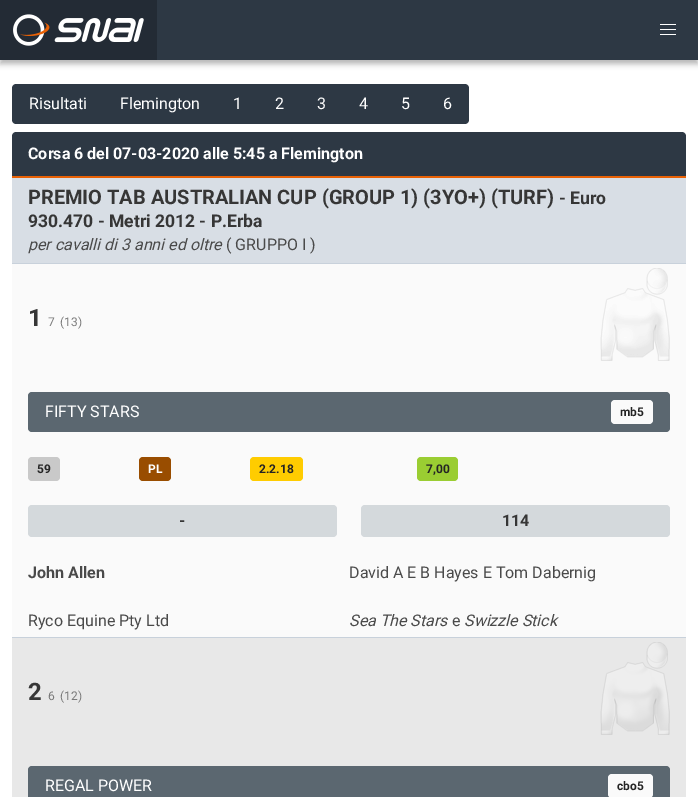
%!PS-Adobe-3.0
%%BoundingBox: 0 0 698 797
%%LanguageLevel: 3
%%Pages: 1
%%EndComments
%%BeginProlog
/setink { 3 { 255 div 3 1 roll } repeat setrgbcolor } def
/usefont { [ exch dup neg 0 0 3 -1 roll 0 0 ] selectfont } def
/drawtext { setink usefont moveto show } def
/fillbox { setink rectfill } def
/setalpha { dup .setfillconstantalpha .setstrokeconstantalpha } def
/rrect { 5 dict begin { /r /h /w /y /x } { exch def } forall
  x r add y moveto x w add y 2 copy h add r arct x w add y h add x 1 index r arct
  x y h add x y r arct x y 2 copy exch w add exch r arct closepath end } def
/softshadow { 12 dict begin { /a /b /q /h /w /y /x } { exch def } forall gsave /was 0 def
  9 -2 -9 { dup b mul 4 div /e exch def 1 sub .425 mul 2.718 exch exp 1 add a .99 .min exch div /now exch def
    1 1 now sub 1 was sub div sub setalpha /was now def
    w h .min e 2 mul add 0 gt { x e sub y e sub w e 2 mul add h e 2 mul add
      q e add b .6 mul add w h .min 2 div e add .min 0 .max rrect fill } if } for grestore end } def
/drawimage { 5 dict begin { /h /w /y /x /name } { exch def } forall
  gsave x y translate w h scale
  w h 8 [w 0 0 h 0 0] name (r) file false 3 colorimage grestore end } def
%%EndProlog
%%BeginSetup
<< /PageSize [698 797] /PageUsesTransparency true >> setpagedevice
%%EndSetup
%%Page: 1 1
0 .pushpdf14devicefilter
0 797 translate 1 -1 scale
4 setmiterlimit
0 0 698 797 255 255 255 fillbox
0 0 0 setink
0 4 698 60 0 3 0.3 softshadow
157 0 541 60 45 56 68 fillbox
0 0 157 60 35 43 53 fillbox
(assets/img1.rgb) 13 14 131 32 drawimage
660 24 16 1 255 255 255 fillbox
660 29 16 1 255 255 255 fillbox
660 34 16 1 255 255 255 fillbox
45 56 68 setink
16 84 moveto 104 84 lineto 104 124 lineto 16 124 lineto 14 124 12 122 12 120 curveto 12 88 lineto 12 86 14 84 16 84 curveto closepath fill
(Risultati) 29 109 /Roboto-Regular 16 255 255 255 drawtext
104 84 322 40 45 56 68 fillbox
(Flemington) 120 109 /Roboto-Regular 16 255 255 255 drawtext
(1) 233 109 /Roboto-Regular 16 255 255 255 drawtext
(2) 275 109 /Roboto-Regular 16 255 255 255 drawtext
(3) 317 109 /Roboto-Regular 16 255 255 255 drawtext
(4) 359 109 /Roboto-Regular 16 255 255 255 drawtext
(5) 401 109 /Roboto-Regular 16 255 255 255 drawtext
45 56 68 setink
426 84 moveto 465 84 lineto 467 84 469 86 469 88 curveto 469 120 lineto 469 122 467 124 465 124 curveto 426 124 lineto closepath fill
(6) 443 109 /Roboto-Regular 16 255 255 255 drawtext
45 56 68 setink
16 132 moveto 682 132 lineto 684 132 686 134 686 136 curveto 686 178 lineto 12 178 lineto 12 136 lineto 12 134 14 132 16 132 curveto closepath fill
12 176 674 2 233 97 5 fillbox
(Corsa 6 del 07-03-2020 alle 5:45 a Flemington) 28 159 /Roboto-Bold 16 255 255 255 drawtext
12 178 674 85 216 222 229 fillbox
12 263 674 1 200 209 219 fillbox
(PREMIO TAB AUSTRALIAN CUP \(GROUP 1\) \(3YO+\) \(TURF\)) 28 204 /Roboto-Bold 20 54 54 54 drawtext
(- Euro) 559 204 /Roboto-Bold 17.5 54 54 54 drawtext
(930.470 - Metri 2012 - P.Erba) 28 227 /Roboto-Bold 17.5 54 54 54 drawtext
(per cavalli di 3 anni ed oltre) 28 250 /Roboto-Italic 16 74 74 74 drawtext
(\( GRUPPO I \)) 226 250 /Roboto-Regular 16 74 74 74 drawtext
12 264 674 373 250 250 250 fillbox
12 637 674 1 200 209 219 fillbox
(1) 28 326 /Roboto-Bold 24 54 54 54 drawtext
(7) 48 326 /Roboto-Regular 12 122 122 122 drawtext
(\(13\)) 60 326 /Roboto-Regular 12 122 122 122 drawtext
(assets/img2.rgb) 600 268 70 93 drawimage
91 103 112 setink
28 392 642 40 4 rrect fill
(FIFTY STARS) 45 417 /Roboto-Regular 16 255 255 255 drawtext
250 250 250 setink
611 400 42 24 4 rrect fill
(mb5) 620 416 /Roboto-Bold 12 36 36 36 drawtext
201 201 201 setink
28 457 32 24 4 rrect fill
(59) 37 473 /Roboto-Bold 12 36 36 36 drawtext
153 77 0 setink
139 457 32 24 4 rrect fill
(PL) 148 473 /Roboto-Bold 12 255 255 255 drawtext
255 204 0 setink
250 457 53 24 4 rrect fill
(2.2.18) 259 473 /Roboto-Bold 12 36 36 36 drawtext
154 205 50 setink
417 457 41 24 4 rrect fill
(7,00) 426 473 /Roboto-Bold 12 36 36 36 drawtext
212 217 220 setink
28 505 309 32 4 rrect fill
(-) 179 526 /Roboto-Bold 16 54 54 54 drawtext
212 217 220 setink
361 505 309 32 4 rrect fill
(114) 502 526 /Roboto-Bold 16 54 54 54 drawtext
(John Allen) 28 578 /Roboto-Bold 16 74 74 74 drawtext
(David A E B Hayes E Tom Dabernig) 349 578 /Roboto-Regular 16 74 74 74 drawtext
(Ryco Equine Pty Ltd) 28 626 /Roboto-Regular 16 74 74 74 drawtext
(Sea The Stars) 349 626 /Roboto-Italic 16 74 74 74 drawtext
(e) 452 626 /Roboto-Regular 16 74 74 74 drawtext
(Swizzle Stick) 464 626 /Roboto-Italic 16 74 74 74 drawtext
12 638 674 159 232 232 232 fillbox
(2) 28 700 /Roboto-Bold 24 54 54 54 drawtext
(6) 48 700 /Roboto-Regular 12 122 122 122 drawtext
(\(12\)) 60 700 /Roboto-Regular 12 122 122 122 drawtext
(assets/img3.rgb) 600 642 70 93 drawimage
91 103 112 setink
28 766 642 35 4 rrect fill
(REGAL POWER) 45 791 /Roboto-Regular 16 255 255 255 drawtext
250 250 250 setink
608 774 45 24 4 rrect fill
(cbo5) 617 790 /Roboto-Bold 12 36 36 36 drawtext
.poppdf14devicefilter showpage
%%EOF
